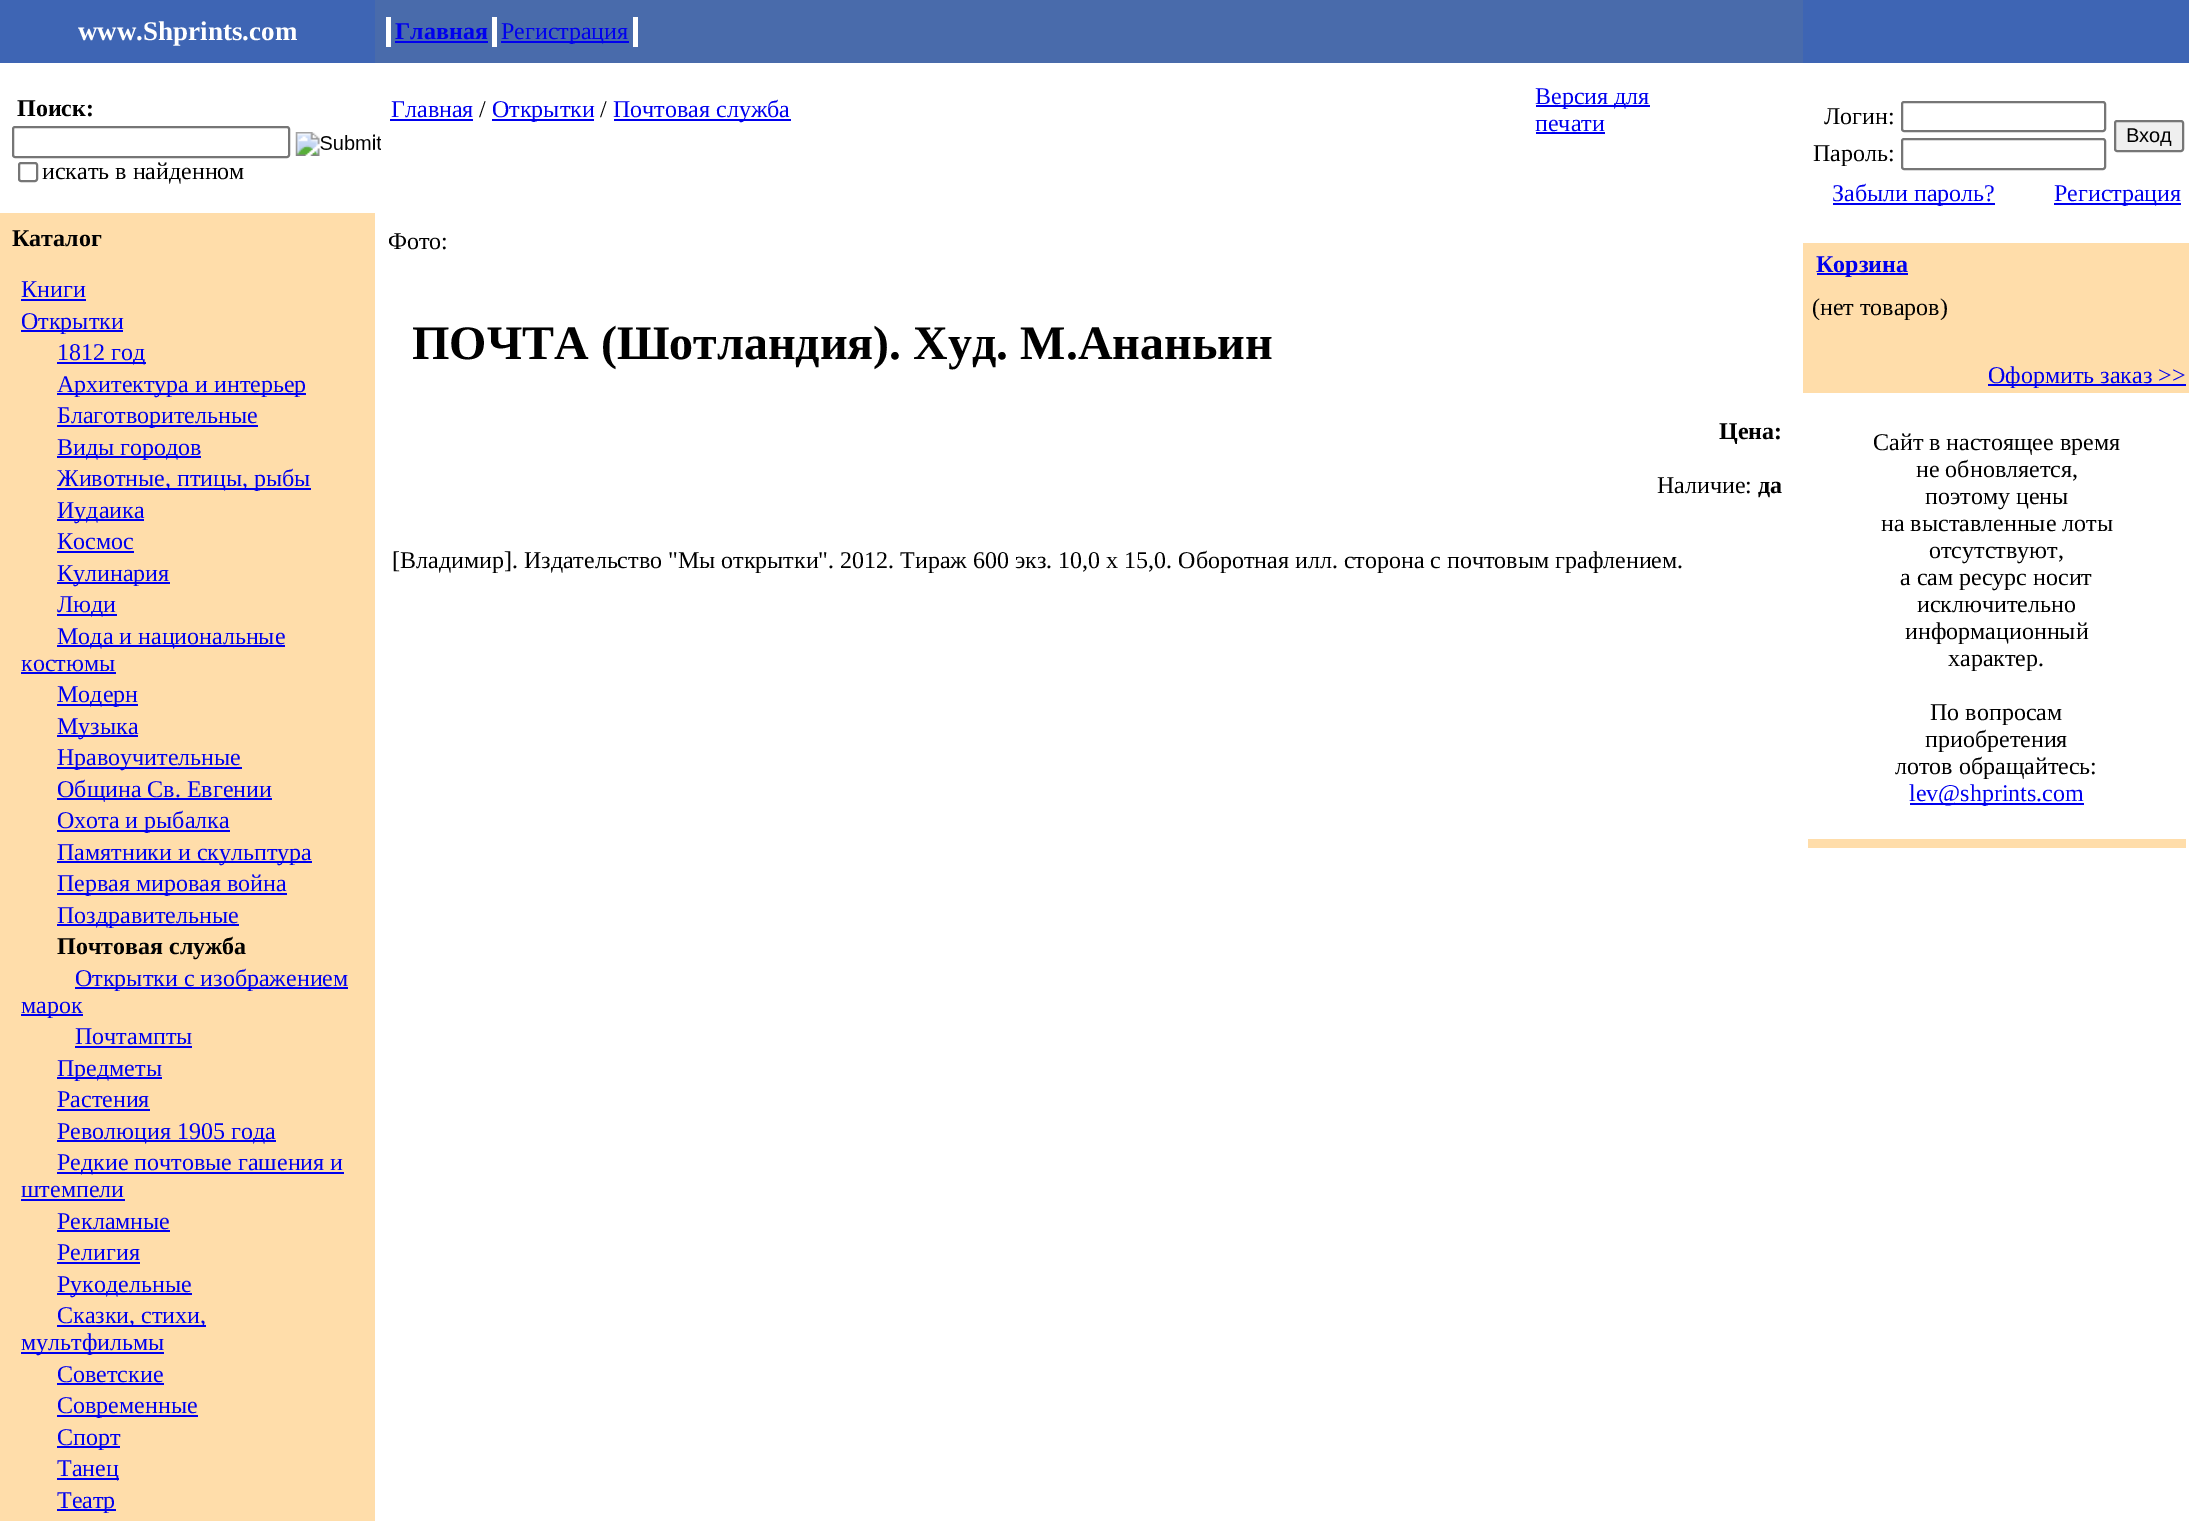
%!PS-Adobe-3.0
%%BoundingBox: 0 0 2189 1521
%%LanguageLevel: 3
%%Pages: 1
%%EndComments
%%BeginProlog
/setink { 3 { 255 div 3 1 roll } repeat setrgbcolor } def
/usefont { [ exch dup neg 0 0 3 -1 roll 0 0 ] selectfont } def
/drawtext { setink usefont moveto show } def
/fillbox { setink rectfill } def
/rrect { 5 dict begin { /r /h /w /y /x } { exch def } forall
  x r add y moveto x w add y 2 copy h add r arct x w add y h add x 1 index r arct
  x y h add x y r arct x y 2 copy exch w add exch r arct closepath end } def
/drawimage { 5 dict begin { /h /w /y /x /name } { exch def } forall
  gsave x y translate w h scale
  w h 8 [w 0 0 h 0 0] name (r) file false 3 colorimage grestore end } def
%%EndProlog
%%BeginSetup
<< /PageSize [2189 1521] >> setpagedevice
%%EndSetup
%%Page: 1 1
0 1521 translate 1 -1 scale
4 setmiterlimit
0 0 2189 1521 255 255 255 fillbox
0 0 375 63 62 101 180 fillbox
(www.Shprints.com) 78 40 /LiberationSerif-Bold 27 255 255 255 drawtext
375 0 1428 63 73 107 171 fillbox
386 17 5 30 255 255 255 fillbox
(Главная) 395 39 /LiberationSerif-Bold 24 0 0 238 drawtext
395 41 93 2 0 0 238 fillbox
492 17 5 30 255 255 255 fillbox
501 41 128 2 0 0 238 fillbox
(Регистрация) 501 39 /LiberationSerif-Regular 24 0 0 238 drawtext
633 17 5 30 255 255 255 fillbox
1803 0 386 63 62 101 180 fillbox
(Поиск:) 17 116 /LiberationSerif-Bold 24 0 0 0 drawtext
118 118 118 setink
2 setlinewidth
13 127 276 30 2 rrect stroke
(assets/img1.rgb) 295 132 86 24 drawimage
(i) 372 149 /LiberationSans-Regular 20 0 0 0 drawtext
118 118 118 setink
19 163 18 18 2 rrect stroke
(искать в найденном) 42 179 /LiberationSerif-Regular 24 0 0 0 drawtext
0 213 375 1308 255 221 170 fillbox
(Каталог) 12 246 /LiberationSerif-Bold 24 0 0 0 drawtext
(Книги) 21 297 /LiberationSerif-Regular 24 0 0 238 drawtext
21 299 65 2 0 0 238 fillbox
21 330 102 2 0 0 238 fillbox
(Открытки) 21 329 /LiberationSerif-Regular 24 0 0 238 drawtext
57 362 89 2 0 0 238 fillbox
(1812 год) 57 360 /LiberationSerif-Regular 24 0 0 238 drawtext
57 393 249 2 0 0 238 fillbox
(Архитектура и интерьер) 57 392 /LiberationSerif-Regular 24 0 0 238 drawtext
57 425 201 2 0 0 238 fillbox
(Благотворительные) 57 423 /LiberationSerif-Regular 24 0 0 238 drawtext
57 456 144 2 0 0 238 fillbox
(Виды городов) 57 455 /LiberationSerif-Regular 24 0 0 238 drawtext
57 488 254 2 0 0 238 fillbox
(Животные, птицы, рыбы) 57 486 /LiberationSerif-Regular 24 0 0 238 drawtext
57 519 87 2 0 0 238 fillbox
(Иудаика) 57 518 /LiberationSerif-Regular 24 0 0 238 drawtext
(Космос) 57 549 /LiberationSerif-Regular 24 0 0 238 drawtext
57 551 77 2 0 0 238 fillbox
57 582 113 2 0 0 238 fillbox
(Кулинария) 57 581 /LiberationSerif-Regular 24 0 0 238 drawtext
57 614 60 2 0 0 238 fillbox
(Люди) 57 612 /LiberationSerif-Regular 24 0 0 238 drawtext
57 645 228 2 0 0 238 fillbox
(Мода и национальные) 57 644 /LiberationSerif-Regular 24 0 0 238 drawtext
(костюмы) 21 671 /LiberationSerif-Regular 24 0 0 238 drawtext
21 672 95 2 0 0 238 fillbox
57 704 81 2 0 0 238 fillbox
(Модерн) 57 702 /LiberationSerif-Regular 24 0 0 238 drawtext
57 735 81 2 0 0 238 fillbox
(Музыка) 57 734 /LiberationSerif-Regular 24 0 0 238 drawtext
57 767 185 2 0 0 238 fillbox
(Нравоучительные) 57 765 /LiberationSerif-Regular 24 0 0 238 drawtext
57 798 215 2 0 0 238 fillbox
(Община Св. Евгении) 57 797 /LiberationSerif-Regular 24 0 0 238 drawtext
57 830 173 2 0 0 238 fillbox
(Охота и рыбалка) 57 828 /LiberationSerif-Regular 24 0 0 238 drawtext
57 861 255 2 0 0 238 fillbox
(Памятники и скульптура) 57 860 /LiberationSerif-Regular 24 0 0 238 drawtext
57 893 230 2 0 0 238 fillbox
(Первая мировая война) 57 891 /LiberationSerif-Regular 24 0 0 238 drawtext
57 924 182 2 0 0 238 fillbox
(Поздравительные) 57 923 /LiberationSerif-Regular 24 0 0 238 drawtext
(Почтовая служба) 57 954 /LiberationSerif-Bold 24 0 0 0 drawtext
75 987 273 2 0 0 238 fillbox
(Открытки с изображением) 75 986 /LiberationSerif-Regular 24 0 0 238 drawtext
21 1014 62 2 0 0 238 fillbox
(марок) 21 1013 /LiberationSerif-Regular 24 0 0 238 drawtext
(Почтампты) 75 1044 /LiberationSerif-Regular 24 0 0 238 drawtext
75 1046 117 2 0 0 238 fillbox
57 1077 105 2 0 0 238 fillbox
(Предметы) 57 1076 /LiberationSerif-Regular 24 0 0 238 drawtext
(Растения) 57 1107 /LiberationSerif-Regular 24 0 0 238 drawtext
57 1109 93 2 0 0 238 fillbox
57 1140 219 2 0 0 238 fillbox
(Революция 1905 года) 57 1139 /LiberationSerif-Regular 24 0 0 238 drawtext
57 1172 287 2 0 0 238 fillbox
(Редкие почтовые гашения и) 57 1170 /LiberationSerif-Regular 24 0 0 238 drawtext
(штемпели) 21 1197 /LiberationSerif-Regular 24 0 0 238 drawtext
21 1199 104 2 0 0 238 fillbox
(Рекламные) 57 1229 /LiberationSerif-Regular 24 0 0 238 drawtext
57 1230 113 2 0 0 238 fillbox
(Религия) 57 1260 /LiberationSerif-Regular 24 0 0 238 drawtext
57 1262 83 2 0 0 238 fillbox
57 1293 135 2 0 0 238 fillbox
(Рукодельные) 57 1292 /LiberationSerif-Regular 24 0 0 238 drawtext
57 1325 149 2 0 0 238 fillbox
(Сказки, стихи,) 57 1323 /LiberationSerif-Regular 24 0 0 238 drawtext
21 1352 143 2 0 0 238 fillbox
(мультфильмы) 21 1350 /LiberationSerif-Regular 24 0 0 238 drawtext
(Советские) 57 1382 /LiberationSerif-Regular 24 0 0 238 drawtext
57 1383 107 2 0 0 238 fillbox
57 1415 141 2 0 0 238 fillbox
(Современные) 57 1413 /LiberationSerif-Regular 24 0 0 238 drawtext
57 1446 63 2 0 0 238 fillbox
(Спорт) 57 1445 /LiberationSerif-Regular 24 0 0 238 drawtext
57 1478 62 2 0 0 238 fillbox
(Танец) 57 1476 /LiberationSerif-Regular 24 0 0 238 drawtext
57 1509 59 2 0 0 238 fillbox
(Театр) 57 1508 /LiberationSerif-Regular 24 0 0 238 drawtext
(Главная) 391 117 /LiberationSerif-Regular 24 0 0 238 drawtext
390 119 83 2 0 0 238 fillbox
(/) 479 117 /LiberationSerif-Regular 24 0 0 0 drawtext
492 119 102 2 0 0 238 fillbox
(Открытки) 492 117 /LiberationSerif-Regular 24 0 0 238 drawtext
(/) 600 117 /LiberationSerif-Regular 24 0 0 0 drawtext
614 119 177 2 0 0 238 fillbox
(Почтовая служба) 613 117 /LiberationSerif-Regular 24 0 0 238 drawtext
1536 105 114 2 0 0 238 fillbox
(Версия для) 1535 104 /LiberationSerif-Regular 24 0 0 238 drawtext
(печати) 1535 131 /LiberationSerif-Regular 24 0 0 238 drawtext
1536 132 69 2 0 0 238 fillbox
(Фото:) 388 249 /LiberationSerif-Regular 24 0 0 0 drawtext
(ПОЧТА \(Шотландия\). Худ. М.Ананьин) 412 359 /LiberationSerif-Bold 48 0 0 0 drawtext
(Цена:) 1719 439 /LiberationSerif-Bold 24 0 0 0 drawtext
(Наличие:) 1657 493 /LiberationSerif-Regular 24 0 0 0 drawtext
(да) 1758 493 /LiberationSerif-Bold 24 0 0 0 drawtext
([Владимир]. Издательство "Мы открытки". 2012. Тираж 600 экз. 10,0 х 15,0. Оборотная илл. сторона с почтовым графлением.) 392 568 /LiberationSerif-Regular 24 0 0 0 drawtext
(Логин:) 1824 124 /LiberationSerif-Regular 24 0 0 0 drawtext
118 118 118 setink
1902 102 203 29 2 rrect stroke
(Пароль:) 1813 161 /LiberationSerif-Regular 24 0 0 0 drawtext
118 118 118 setink
1902 139 203 30 2 rrect stroke
239 239 239 setink
2115 121 68 30 2 rrect gsave fill grestore
118 118 118 setink
stroke
(Вход) 2126 142 /LiberationSans-Regular 20 0 0 0 drawtext
1833 203 162 2 0 0 238 fillbox
(Забыли пароль?) 1832 201 /LiberationSerif-Regular 24 0 0 238 drawtext
2054 203 127 2 0 0 238 fillbox
(Регистрация) 2054 201 /LiberationSerif-Regular 24 0 0 238 drawtext
1803 243 386 150 255 221 170 fillbox
1817 273 91 2 0 0 238 fillbox
(Корзина) 1816 272 /LiberationSerif-Bold 24 0 0 238 drawtext
(\(нет товаров\)) 1812 315 /LiberationSerif-Regular 24 0 0 0 drawtext
1988 384 198 2 0 0 238 fillbox
(Оформить заказ >>) 1988 383 /LiberationSerif-Regular 24 0 0 238 drawtext
(Сайт в настоящее время) 1873 450 /LiberationSerif-Regular 24 0 0 0 drawtext
(не обновляется,) 1916 477 /LiberationSerif-Regular 24 0 0 0 drawtext
(поэтому цены) 1925 504 /LiberationSerif-Regular 24 0 0 0 drawtext
(на выставленные лоты) 1881 531 /LiberationSerif-Regular 24 0 0 0 drawtext
(отсутствуют,) 1929 558 /LiberationSerif-Regular 24 0 0 0 drawtext
(а сам ресурс носит) 1900 585 /LiberationSerif-Regular 24 0 0 0 drawtext
(исключительно) 1917 612 /LiberationSerif-Regular 24 0 0 0 drawtext
(информационный) 1905 639 /LiberationSerif-Regular 24 0 0 0 drawtext
(характер.) 1948 666 /LiberationSerif-Regular 24 0 0 0 drawtext
(По вопросам) 1930 720 /LiberationSerif-Regular 24 0 0 0 drawtext
(приобретения) 1925 747 /LiberationSerif-Regular 24 0 0 0 drawtext
(лотов обращайтесь:) 1895 774 /LiberationSerif-Regular 24 0 0 0 drawtext
1910 803 174 2 0 0 238 fillbox
(lev@shprints.com) 1909 801 /LiberationSerif-Regular 24 0 0 238 drawtext
1808 839 378 9 255 221 170 fillbox
showpage
%%EOF
